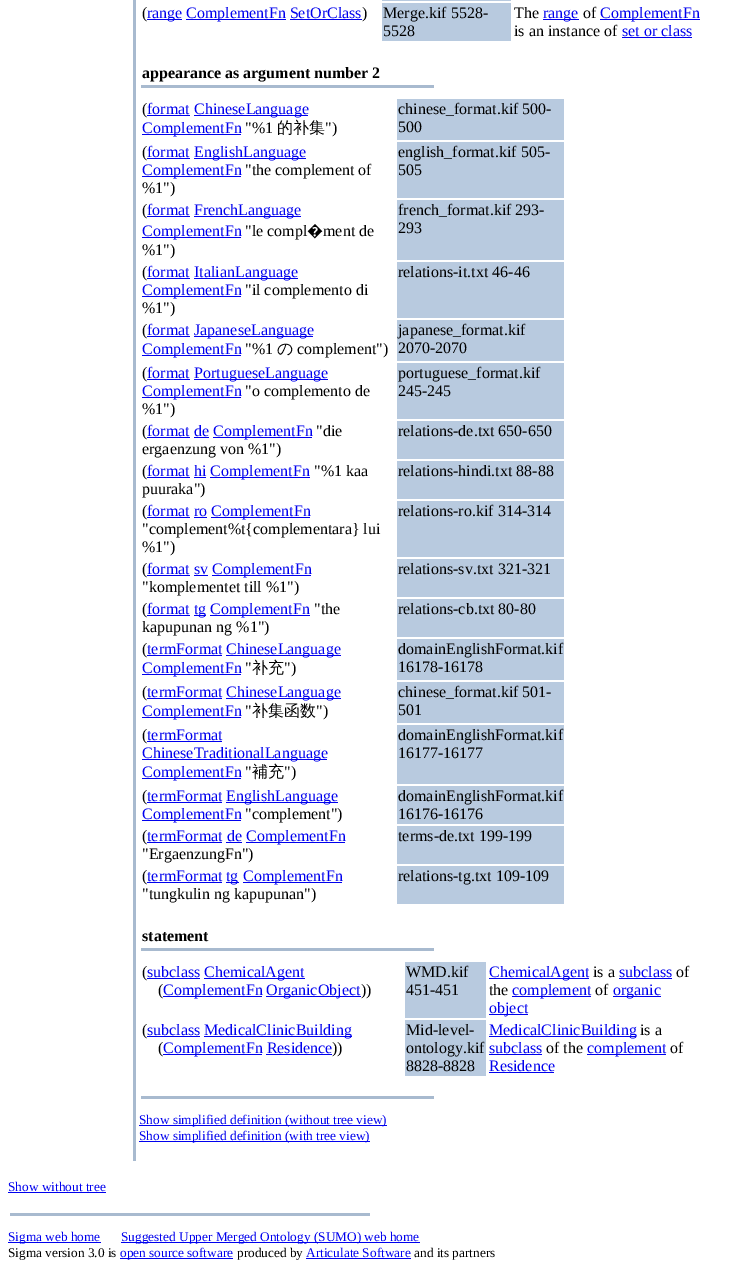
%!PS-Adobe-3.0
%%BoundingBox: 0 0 744 1277
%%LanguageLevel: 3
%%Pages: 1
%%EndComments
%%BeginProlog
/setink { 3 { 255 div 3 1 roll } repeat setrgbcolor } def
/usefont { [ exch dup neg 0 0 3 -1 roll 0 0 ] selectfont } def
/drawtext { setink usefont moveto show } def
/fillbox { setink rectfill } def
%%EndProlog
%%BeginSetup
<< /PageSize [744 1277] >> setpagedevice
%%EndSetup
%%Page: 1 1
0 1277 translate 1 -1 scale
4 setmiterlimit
0 0 744 1277 255 255 255 fillbox
133 0 3 1161 168 186 207 fillbox
382 0 129 1 184 202 223 fillbox
(\() 142 18 /LiberationSerif-Regular 16 0 0 0 drawtext
147 19 35 1 0 0 238 fillbox
(range) 147 18 /LiberationSerif-Regular 16 0 0 238 drawtext
186 19 100 1 0 0 238 fillbox
(ComplementFn SetOrClass) 186 18 /LiberationSerif-Regular 16 0 0 238 drawtext
(\)) 362 18 /LiberationSerif-Regular 16 0 0 0 drawtext
290 19 72 1 0 0 238 fillbox
382 3 129 38 184 202 223 fillbox
(Merge.kif 5528-) 383 18 /LiberationSerif-Regular 16 0 0 0 drawtext
(5528) 383 36 /LiberationSerif-Regular 16 0 0 0 drawtext
(The) 514 18 /LiberationSerif-Regular 16 0 0 0 drawtext
543 19 36 1 0 0 238 fillbox
(range) 543 18 /LiberationSerif-Regular 16 0 0 238 drawtext
(of) 583 18 /LiberationSerif-Regular 16 0 0 0 drawtext
600 19 100 1 0 0 238 fillbox
(ComplementFn) 600 18 /LiberationSerif-Regular 16 0 0 238 drawtext
(is an instance of) 514 36 /LiberationSerif-Regular 16 0 0 0 drawtext
(set or class) 622 36 /LiberationSerif-Regular 16 0 0 238 drawtext
622 37 70 1 0 0 238 fillbox
(appearance as argument number 2) 142 78 /LiberationSerif-Bold 16 0 0 0 drawtext
141 85 293 3 168 186 207 fillbox
(\() 142 114 /LiberationSerif-Regular 16 0 0 0 drawtext
(format) 147 114 /LiberationSerif-Regular 16 0 0 238 drawtext
147 115 43 1 0 0 238 fillbox
194 115 114 1 0 0 238 fillbox
(ChineseLanguage) 194 114 /LiberationSerif-Regular 16 0 0 238 drawtext
142 134 99 1 0 0 238 fillbox
(ComplementFn) 142 133 /LiberationSerif-Regular 16 0 0 238 drawtext
("%1) 245 133 /LiberationSerif-Regular 16 0 0 0 drawtext
(的补集) 277 133 /WenQuanYiZenHei-Medium 16 0 0 0 drawtext
("\)) 325 133 /LiberationSerif-Regular 16 0 0 0 drawtext
397 99 167 41 184 202 223 fillbox
(chinese_format.kif 500-) 398 114 /LiberationSerif-Regular 16 0 0 0 drawtext
(500) 398 132 /LiberationSerif-Regular 16 0 0 0 drawtext
(\() 142 157 /LiberationSerif-Regular 16 0 0 0 drawtext
(format) 147 157 /LiberationSerif-Regular 16 0 0 238 drawtext
147 158 43 1 0 0 238 fillbox
194 158 112 1 0 0 238 fillbox
(EnglishLanguage) 194 157 /LiberationSerif-Regular 16 0 0 238 drawtext
142 176 99 1 0 0 238 fillbox
(ComplementFn) 142 175 /LiberationSerif-Regular 16 0 0 238 drawtext
("the complement of) 245 175 /LiberationSerif-Regular 16 0 0 0 drawtext
(%1"\)) 142 193 /LiberationSerif-Regular 16 0 0 0 drawtext
397 142 167 56 184 202 223 fillbox
(english_format.kif 505-) 398 157 /LiberationSerif-Regular 16 0 0 0 drawtext
(505) 398 175 /LiberationSerif-Regular 16 0 0 0 drawtext
(\() 142 215 /LiberationSerif-Regular 16 0 0 0 drawtext
(format) 147 215 /LiberationSerif-Regular 16 0 0 238 drawtext
147 216 43 1 0 0 238 fillbox
194 216 107 1 0 0 238 fillbox
(FrenchLanguage) 194 215 /LiberationSerif-Regular 16 0 0 238 drawtext
142 237 99 1 0 0 238 fillbox
(ComplementFn) 142 236 /LiberationSerif-Regular 16 0 0 238 drawtext
("le compl) 245 236 /LiberationSerif-Regular 16 0 0 0 drawtext
(�) 307 236 /NotoSans-Regular 16 0 0 0 drawtext
(ment de) 323 236 /LiberationSerif-Regular 16 0 0 0 drawtext
(%1"\)) 142 255 /LiberationSerif-Regular 16 0 0 0 drawtext
397 200 167 60 184 202 223 fillbox
(french_format.kif 293-) 398 215 /LiberationSerif-Regular 16 0 0 0 drawtext
(293) 398 233 /LiberationSerif-Regular 16 0 0 0 drawtext
(\() 142 277 /LiberationSerif-Regular 16 0 0 0 drawtext
(format) 147 277 /LiberationSerif-Regular 16 0 0 238 drawtext
147 278 43 1 0 0 238 fillbox
194 278 104 1 0 0 238 fillbox
(ItalianLanguage) 194 277 /LiberationSerif-Regular 16 0 0 238 drawtext
142 296 99 1 0 0 238 fillbox
(ComplementFn) 142 295 /LiberationSerif-Regular 16 0 0 238 drawtext
("il complemento di) 245 295 /LiberationSerif-Regular 16 0 0 0 drawtext
(%1"\)) 142 313 /LiberationSerif-Regular 16 0 0 0 drawtext
397 262 167 56 184 202 223 fillbox
(relations-it.txt 46-46) 398 277 /LiberationSerif-Regular 16 0 0 0 drawtext
(\() 142 335 /LiberationSerif-Regular 16 0 0 0 drawtext
(format) 147 335 /LiberationSerif-Regular 16 0 0 238 drawtext
147 336 43 1 0 0 238 fillbox
194 336 119 1 0 0 238 fillbox
(JapaneseLanguage) 194 335 /LiberationSerif-Regular 16 0 0 238 drawtext
142 355 99 1 0 0 238 fillbox
(ComplementFn) 142 354 /LiberationSerif-Regular 16 0 0 238 drawtext
("%1) 245 354 /LiberationSerif-Regular 16 0 0 0 drawtext
(の) 277 354 /WenQuanYiZenHei-Medium 16 0 0 0 drawtext
(complement"\)) 297 354 /LiberationSerif-Regular 16 0 0 0 drawtext
397 320 167 41 184 202 223 fillbox
(japanese_format.kif) 398 335 /LiberationSerif-Regular 16 0 0 0 drawtext
(2070-2070) 398 353 /LiberationSerif-Regular 16 0 0 0 drawtext
(\() 142 378 /LiberationSerif-Regular 16 0 0 0 drawtext
(format) 147 378 /LiberationSerif-Regular 16 0 0 238 drawtext
147 379 43 1 0 0 238 fillbox
194 379 134 1 0 0 238 fillbox
(PortugueseLanguage) 194 378 /LiberationSerif-Regular 16 0 0 238 drawtext
142 397 99 1 0 0 238 fillbox
(ComplementFn) 142 396 /LiberationSerif-Regular 16 0 0 238 drawtext
("o complemento de) 245 396 /LiberationSerif-Regular 16 0 0 0 drawtext
(%1"\)) 142 414 /LiberationSerif-Regular 16 0 0 0 drawtext
397 363 167 56 184 202 223 fillbox
(portuguese_format.kif) 398 378 /LiberationSerif-Regular 16 0 0 0 drawtext
(245-245) 398 396 /LiberationSerif-Regular 16 0 0 0 drawtext
(\() 142 436 /LiberationSerif-Regular 16 0 0 0 drawtext
(format de) 147 436 /LiberationSerif-Regular 16 0 0 238 drawtext
147 437 43 1 0 0 238 fillbox
213 437 99 1 0 0 238 fillbox
(ComplementFn) 213 436 /LiberationSerif-Regular 16 0 0 238 drawtext
("die) 316 436 /LiberationSerif-Regular 16 0 0 0 drawtext
194 437 15 1 0 0 238 fillbox
(ergaenzung von %1"\)) 142 454 /LiberationSerif-Regular 16 0 0 0 drawtext
397 421 167 38 184 202 223 fillbox
(relations-de.txt 650-650) 398 436 /LiberationSerif-Regular 16 0 0 0 drawtext
(\() 142 476 /LiberationSerif-Regular 16 0 0 0 drawtext
(format hi) 147 476 /LiberationSerif-Regular 16 0 0 238 drawtext
147 477 43 1 0 0 238 fillbox
210 477 100 1 0 0 238 fillbox
(ComplementFn) 210 476 /LiberationSerif-Regular 16 0 0 238 drawtext
("%1 kaa) 314 476 /LiberationSerif-Regular 16 0 0 0 drawtext
194 477 12 1 0 0 238 fillbox
(puuraka"\)) 142 494 /LiberationSerif-Regular 16 0 0 0 drawtext
397 461 167 38 184 202 223 fillbox
(relations-hindi.txt 88-88) 398 476 /LiberationSerif-Regular 16 0 0 0 drawtext
(\() 142 516 /LiberationSerif-Regular 16 0 0 0 drawtext
(format ro) 147 516 /LiberationSerif-Regular 16 0 0 238 drawtext
147 517 43 1 0 0 238 fillbox
211 517 99 1 0 0 238 fillbox
(ComplementFn) 211 516 /LiberationSerif-Regular 16 0 0 238 drawtext
194 517 13 1 0 0 238 fillbox
("complement%t{complementara} lui) 142 534 /LiberationSerif-Regular 16 0 0 0 drawtext
(%1"\)) 142 552 /LiberationSerif-Regular 16 0 0 0 drawtext
397 501 167 56 184 202 223 fillbox
(relations-ro.kif 314-314) 398 516 /LiberationSerif-Regular 16 0 0 0 drawtext
(\() 142 574 /LiberationSerif-Regular 16 0 0 0 drawtext
(format sv) 147 574 /LiberationSerif-Regular 16 0 0 238 drawtext
147 575 43 1 0 0 238 fillbox
212 575 99 1 0 0 238 fillbox
(ComplementFn) 212 574 /LiberationSerif-Regular 16 0 0 238 drawtext
194 575 14 1 0 0 238 fillbox
("komplementet till %1"\)) 142 592 /LiberationSerif-Regular 16 0 0 0 drawtext
397 559 167 38 184 202 223 fillbox
(relations-sv.txt 321-321) 398 574 /LiberationSerif-Regular 16 0 0 0 drawtext
(\() 142 614 /LiberationSerif-Regular 16 0 0 0 drawtext
(format) 147 614 /LiberationSerif-Regular 16 0 0 238 drawtext
147 615 43 1 0 0 238 fillbox
194 615 12 1 0 0 238 fillbox
(tg) 194 614 /LiberationSerif-Regular 16 0 0 238 drawtext
210 615 100 1 0 0 238 fillbox
(ComplementFn) 210 614 /LiberationSerif-Regular 16 0 0 238 drawtext
("the) 314 614 /LiberationSerif-Regular 16 0 0 0 drawtext
(kapupunan ng %1"\)) 142 632 /LiberationSerif-Regular 16 0 0 0 drawtext
397 599 167 38 184 202 223 fillbox
(relations-cb.txt 80-80) 398 614 /LiberationSerif-Regular 16 0 0 0 drawtext
(\() 142 654 /LiberationSerif-Regular 16 0 0 0 drawtext
(termFormat) 147 654 /LiberationSerif-Regular 16 0 0 238 drawtext
147 655 75 1 0 0 238 fillbox
226 655 115 1 0 0 238 fillbox
(ChineseLanguage) 226 654 /LiberationSerif-Regular 16 0 0 238 drawtext
142 674 99 1 0 0 238 fillbox
(ComplementFn) 142 673 /LiberationSerif-Regular 16 0 0 238 drawtext
(") 245 673 /LiberationSerif-Regular 16 0 0 0 drawtext
(补充) 252 673 /WenQuanYiZenHei-Medium 16 0 0 0 drawtext
("\)) 284 673 /LiberationSerif-Regular 16 0 0 0 drawtext
397 639 167 41 184 202 223 fillbox
(domainEnglishFormat.kif) 398 654 /LiberationSerif-Regular 16 0 0 0 drawtext
(16178-16178) 398 672 /LiberationSerif-Regular 16 0 0 0 drawtext
(\() 142 697 /LiberationSerif-Regular 16 0 0 0 drawtext
(termFormat) 147 697 /LiberationSerif-Regular 16 0 0 238 drawtext
147 698 75 1 0 0 238 fillbox
226 698 115 1 0 0 238 fillbox
(ChineseLanguage) 226 697 /LiberationSerif-Regular 16 0 0 238 drawtext
142 717 99 1 0 0 238 fillbox
(ComplementFn) 142 716 /LiberationSerif-Regular 16 0 0 238 drawtext
(") 245 716 /LiberationSerif-Regular 16 0 0 0 drawtext
(补集函数) 252 716 /WenQuanYiZenHei-Medium 16 0 0 0 drawtext
("\)) 316 716 /LiberationSerif-Regular 16 0 0 0 drawtext
397 682 167 41 184 202 223 fillbox
(chinese_format.kif 501-) 398 697 /LiberationSerif-Regular 16 0 0 0 drawtext
(501) 398 715 /LiberationSerif-Regular 16 0 0 0 drawtext
(\() 142 740 /LiberationSerif-Regular 16 0 0 0 drawtext
(termFormat) 147 740 /LiberationSerif-Regular 16 0 0 238 drawtext
147 741 75 1 0 0 238 fillbox
142 759 185 1 0 0 238 fillbox
(ChineseTraditionalLanguage) 142 758 /LiberationSerif-Regular 16 0 0 238 drawtext
142 778 99 1 0 0 238 fillbox
(ComplementFn) 142 777 /LiberationSerif-Regular 16 0 0 238 drawtext
(") 245 777 /LiberationSerif-Regular 16 0 0 0 drawtext
(補充) 252 777 /WenQuanYiZenHei-Medium 16 0 0 0 drawtext
("\)) 284 777 /LiberationSerif-Regular 16 0 0 0 drawtext
397 725 167 59 184 202 223 fillbox
(domainEnglishFormat.kif) 398 740 /LiberationSerif-Regular 16 0 0 0 drawtext
(16177-16177) 398 758 /LiberationSerif-Regular 16 0 0 0 drawtext
(\() 142 801 /LiberationSerif-Regular 16 0 0 0 drawtext
(termFormat) 147 801 /LiberationSerif-Regular 16 0 0 238 drawtext
147 802 75 1 0 0 238 fillbox
226 802 112 1 0 0 238 fillbox
(EnglishLanguage) 226 801 /LiberationSerif-Regular 16 0 0 238 drawtext
142 820 99 1 0 0 238 fillbox
(ComplementFn) 142 819 /LiberationSerif-Regular 16 0 0 238 drawtext
("complement"\)) 245 819 /LiberationSerif-Regular 16 0 0 0 drawtext
397 786 167 38 184 202 223 fillbox
(domainEnglishFormat.kif) 398 801 /LiberationSerif-Regular 16 0 0 0 drawtext
(16176-16176) 398 819 /LiberationSerif-Regular 16 0 0 0 drawtext
(\() 142 841 /LiberationSerif-Regular 16 0 0 0 drawtext
(termFormat de) 147 841 /LiberationSerif-Regular 16 0 0 238 drawtext
147 842 75 1 0 0 238 fillbox
246 842 99 1 0 0 238 fillbox
(ComplementFn) 246 841 /LiberationSerif-Regular 16 0 0 238 drawtext
226 842 16 1 0 0 238 fillbox
("ErgaenzungFn"\)) 142 859 /LiberationSerif-Regular 16 0 0 0 drawtext
397 826 167 38 184 202 223 fillbox
(terms-de.txt 199-199) 398 841 /LiberationSerif-Regular 16 0 0 0 drawtext
(\() 142 881 /LiberationSerif-Regular 16 0 0 0 drawtext
(termFormat) 147 881 /LiberationSerif-Regular 16 0 0 238 drawtext
147 882 75 1 0 0 238 fillbox
226 882 13 1 0 0 238 fillbox
(tg) 226 881 /LiberationSerif-Regular 16 0 0 238 drawtext
243 882 99 1 0 0 238 fillbox
(ComplementFn) 243 881 /LiberationSerif-Regular 16 0 0 238 drawtext
("tungkulin ng kapupunan"\)) 142 899 /LiberationSerif-Regular 16 0 0 0 drawtext
397 866 167 38 184 202 223 fillbox
(relations-tg.txt 109-109) 398 881 /LiberationSerif-Regular 16 0 0 0 drawtext
(statement) 142 941 /LiberationSerif-Bold 16 0 0 0 drawtext
141 948 293 3 168 186 207 fillbox
(\() 142 977 /LiberationSerif-Regular 16 0 0 0 drawtext
(subclass) 147 977 /LiberationSerif-Regular 16 0 0 238 drawtext
147 978 53 1 0 0 238 fillbox
204 978 101 1 0 0 238 fillbox
(ChemicalAgent) 204 977 /LiberationSerif-Regular 16 0 0 238 drawtext
(\() 158 995 /LiberationSerif-Regular 16 0 0 0 drawtext
163 996 99 1 0 0 238 fillbox
(ComplementFn) 163 995 /LiberationSerif-Regular 16 0 0 238 drawtext
266 996 95 1 0 0 238 fillbox
(OrganicObject) 266 995 /LiberationSerif-Regular 16 0 0 238 drawtext
(\)\)) 361 995 /LiberationSerif-Regular 16 0 0 0 drawtext
405 962 81 56 184 202 223 fillbox
(WMD.kif) 406 977 /LiberationSerif-Regular 16 0 0 0 drawtext
(451-451) 406 995 /LiberationSerif-Regular 16 0 0 0 drawtext
489 978 100 1 0 0 238 fillbox
(ChemicalAgent) 489 977 /LiberationSerif-Regular 16 0 0 238 drawtext
(is a) 593 977 /LiberationSerif-Regular 16 0 0 0 drawtext
(subclass) 619 977 /LiberationSerif-Regular 16 0 0 238 drawtext
619 978 53 1 0 0 238 fillbox
(of) 676 977 /LiberationSerif-Regular 16 0 0 0 drawtext
(the) 489 995 /LiberationSerif-Regular 16 0 0 0 drawtext
512 996 79 1 0 0 238 fillbox
(complement) 512 995 /LiberationSerif-Regular 16 0 0 238 drawtext
(of) 595 995 /LiberationSerif-Regular 16 0 0 0 drawtext
613 996 48 1 0 0 238 fillbox
(organic) 613 995 /LiberationSerif-Regular 16 0 0 238 drawtext
489 1014 39 1 0 0 238 fillbox
(object) 489 1013 /LiberationSerif-Regular 16 0 0 238 drawtext
(\() 142 1035 /LiberationSerif-Regular 16 0 0 0 drawtext
(subclass) 147 1035 /LiberationSerif-Regular 16 0 0 238 drawtext
147 1036 53 1 0 0 238 fillbox
204 1036 148 1 0 0 238 fillbox
(MedicalClinicBuilding) 204 1035 /LiberationSerif-Regular 16 0 0 238 drawtext
(\() 158 1053 /LiberationSerif-Regular 16 0 0 0 drawtext
163 1054 99 1 0 0 238 fillbox
(ComplementFn Residence) 163 1053 /LiberationSerif-Regular 16 0 0 238 drawtext
(\)\)) 332 1053 /LiberationSerif-Regular 16 0 0 0 drawtext
266 1054 66 1 0 0 238 fillbox
405 1020 81 56 184 202 223 fillbox
(Mid-level-) 406 1035 /LiberationSerif-Regular 16 0 0 0 drawtext
(ontology.kif) 406 1053 /LiberationSerif-Regular 16 0 0 0 drawtext
(8828-8828) 406 1071 /LiberationSerif-Regular 16 0 0 0 drawtext
489 1036 147 1 0 0 238 fillbox
(MedicalClinicBuilding) 489 1035 /LiberationSerif-Regular 16 0 0 238 drawtext
(is a) 640 1035 /LiberationSerif-Regular 16 0 0 0 drawtext
(subclass) 489 1053 /LiberationSerif-Regular 16 0 0 238 drawtext
489 1054 53 1 0 0 238 fillbox
(of the) 546 1053 /LiberationSerif-Regular 16 0 0 0 drawtext
587 1054 79 1 0 0 238 fillbox
(complement) 587 1053 /LiberationSerif-Regular 16 0 0 238 drawtext
(of) 670 1053 /LiberationSerif-Regular 16 0 0 0 drawtext
(Residence) 489 1071 /LiberationSerif-Regular 16 0 0 238 drawtext
489 1072 65 1 0 0 238 fillbox
141 1096 293 3 168 186 207 fillbox
139 1125 248 1 0 0 238 fillbox
(Show simplified definition \(without tree view\)) 139 1124 /LiberationSerif-Regular 13.3 0 0 238 drawtext
139 1141 231 1 0 0 238 fillbox
(Show simplified definition \(with tree view\)) 139 1140 /LiberationSerif-Regular 13.3 0 0 238 drawtext
(Show without tree) 8 1191 /LiberationSerif-Regular 13.3 0 0 238 drawtext
8 1192 98 1 0 0 238 fillbox
10 1213 360 3 168 186 207 fillbox
8 1242 93 1 0 0 238 fillbox
(Sigma web home) 8 1241 /LiberationSerif-Regular 13.3 0 0 238 drawtext
121 1242 299 1 0 0 238 fillbox
(Suggested Upper Merged Ontology \(SUMO\) web home) 121 1241 /LiberationSerif-Regular 13.3 0 0 238 drawtext
(Sigma version 3.0 is) 8 1257 /LiberationSerif-Regular 13.3 0 0 0 drawtext
120 1258 113 1 0 0 238 fillbox
(open source software) 120 1257 /LiberationSerif-Regular 13.3 0 0 238 drawtext
(produced by) 237 1257 /LiberationSerif-Regular 13.3 0 0 0 drawtext
(Articulate Software) 306 1257 /LiberationSerif-Regular 13.3 0 0 238 drawtext
306 1258 105 1 0 0 238 fillbox
(and its partners) 414 1257 /LiberationSerif-Regular 13.3 0 0 0 drawtext
showpage
%%EOF
